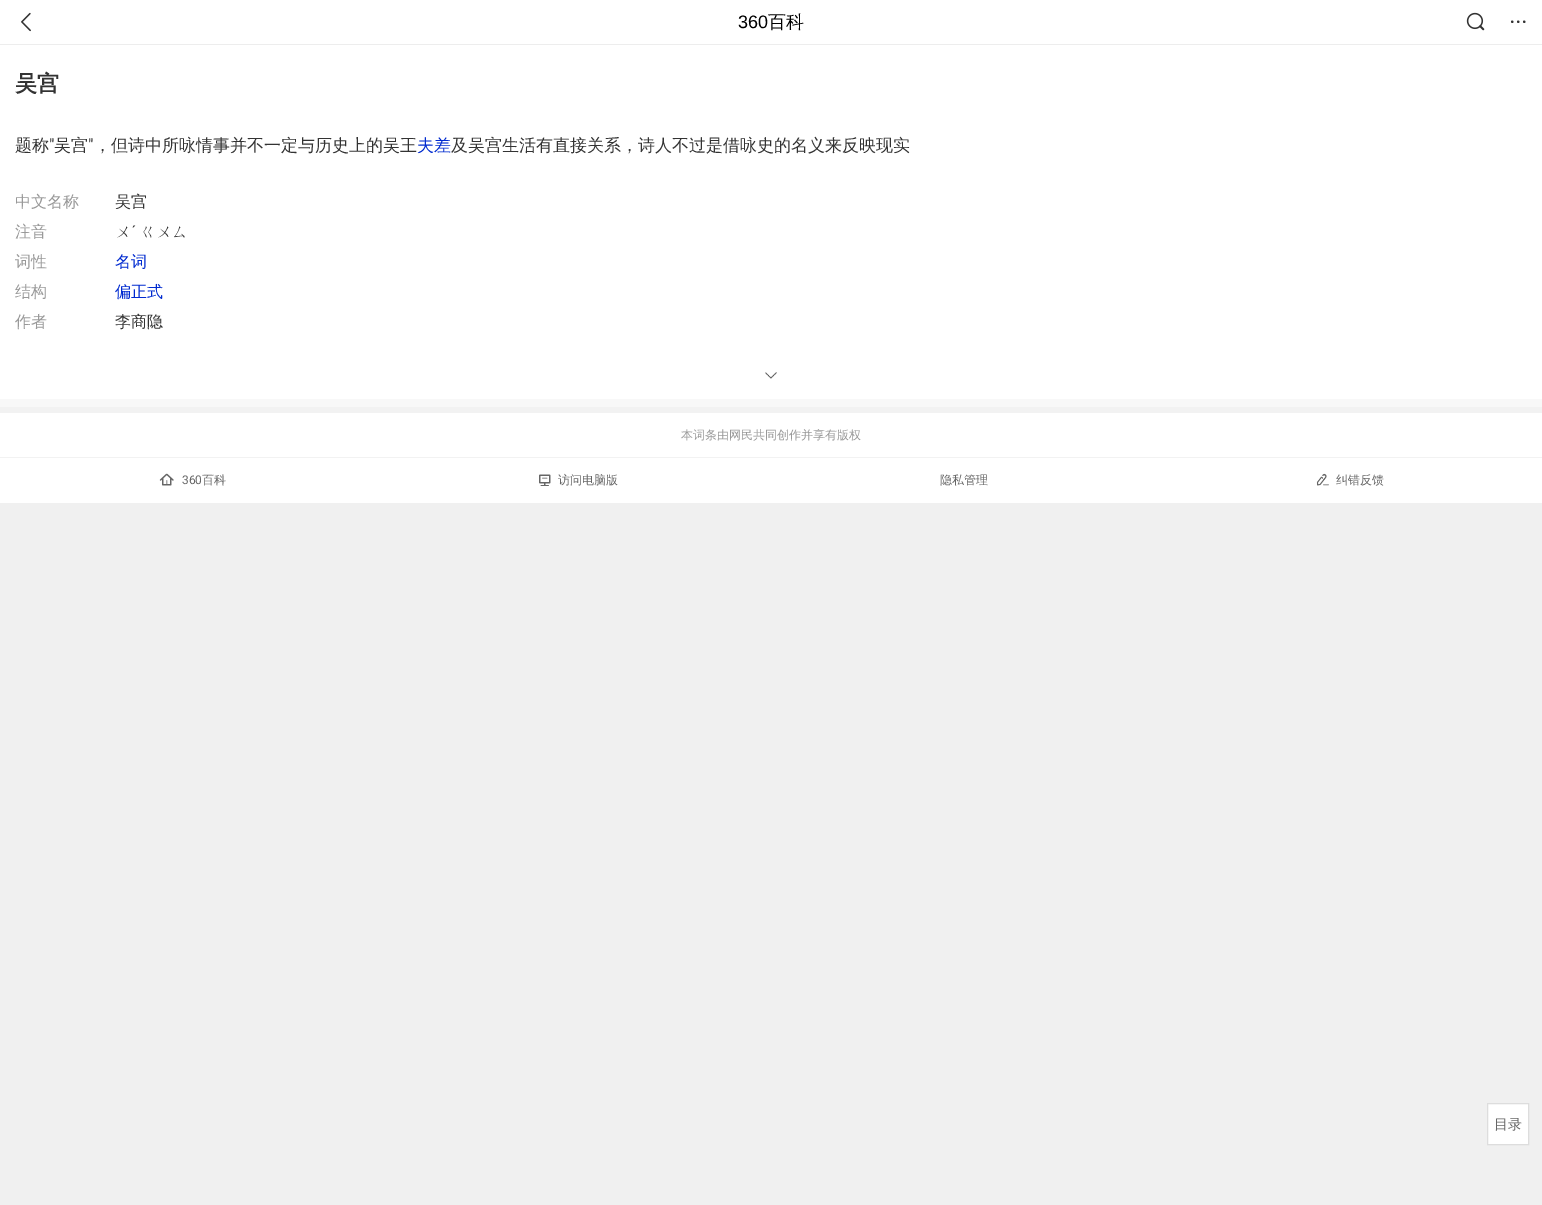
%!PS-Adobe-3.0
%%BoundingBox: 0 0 1542 1205
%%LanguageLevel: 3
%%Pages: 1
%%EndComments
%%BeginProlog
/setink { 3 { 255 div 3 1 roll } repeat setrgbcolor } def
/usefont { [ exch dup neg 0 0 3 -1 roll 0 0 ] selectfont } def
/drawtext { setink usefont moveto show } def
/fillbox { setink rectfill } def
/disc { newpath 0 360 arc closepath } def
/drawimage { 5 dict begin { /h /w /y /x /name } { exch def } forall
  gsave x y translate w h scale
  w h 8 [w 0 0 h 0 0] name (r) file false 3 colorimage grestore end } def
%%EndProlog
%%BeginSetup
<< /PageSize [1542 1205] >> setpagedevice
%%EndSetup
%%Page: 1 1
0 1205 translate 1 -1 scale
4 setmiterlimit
0 0 1542 1205 240 240 240 fillbox
0 45 1542 458 255 255 255 fillbox
0 0 1542 44 255 255 255 fillbox
0 44 1542 1 237 237 237 fillbox
(assets/img1.rgb) 21 12 10 20 drawimage
(360) 738 28 /LiberationSans-Regular 18 0 0 0 drawtext
(百科) 768 28 /WenQuanYiZenHei-Medium 18 0 0 0 drawtext
(assets/img2.rgb) 1466 12 19 19 drawimage
51 51 51 setink
1512.2 21.8 1.2 disc fill
1518.2 21.8 1.2 disc fill
1524.2 21.8 1.2 disc fill
255 255 255 setink
1487.5 1103.5 moveto 1528.5 1103.5 lineto 1528.5 1144.5 lineto 1487.5 1144.5 lineto closepath gsave fill grestore
221 221 221 setink
stroke
(目录) 1494 1129 /WenQuanYiZenHei-Medium 14 102 102 102 drawtext
(吴宫) 15 91 /WenQuanYiZenHei-Bold 22 51 51 51 drawtext
(题称) 15 151 /WenQuanYiZenHei-Medium 17 51 51 51 drawtext
(") 49 151 /Roboto-Regular 17 51 51 51 drawtext
(吴宫) 54 151 /WenQuanYiZenHei-Medium 17 51 51 51 drawtext
(") 88 151 /Roboto-Regular 17 51 51 51 drawtext
(，但诗中所咏情事并不一定与历史上的吴王) 94 151 /WenQuanYiZenHei-Medium 17 51 51 51 drawtext
(夫差) 417 151 /WenQuanYiZenHei-Medium 17 0 42 208 drawtext
(及吴宫生活有直接关系，诗人不过是借咏史的名义来反映现实) 451 151 /WenQuanYiZenHei-Medium 17 51 51 51 drawtext
0 399 1542 8 248 248 248 fillbox
(中文名称) 15 207 /WenQuanYiZenHei-Medium 16 153 153 153 drawtext
(吴宫) 115 207 /WenQuanYiZenHei-Medium 16 51 51 51 drawtext
(注音) 15 237 /WenQuanYiZenHei-Medium 16 153 153 153 drawtext
(ㄨ) 115 237 /WenQuanYiZenHei-Medium 16 51 51 51 drawtext
(ˊ) 131 237 /LiberationSans-Regular 16 51 51 51 drawtext
(ㄍㄨㄙ) 140 237 /WenQuanYiZenHei-Medium 16 51 51 51 drawtext
(词性) 15 267 /WenQuanYiZenHei-Medium 16 153 153 153 drawtext
(名词) 115 267 /WenQuanYiZenHei-Medium 16 0 42 208 drawtext
(结构) 15 297 /WenQuanYiZenHei-Medium 16 153 153 153 drawtext
(偏正式) 115 297 /WenQuanYiZenHei-Medium 16 0 42 208 drawtext
(作者) 15 327 /WenQuanYiZenHei-Medium 16 153 153 153 drawtext
(李商隐) 115 327 /WenQuanYiZenHei-Medium 16 51 51 51 drawtext
(assets/img3.rgb) 765 372 12 7 drawimage
0 407 1542 6 242 242 242 fillbox
(本词条由网民共同创作并享有版权) 681 439 /WenQuanYiZenHei-Medium 12 153 153 153 drawtext
0 457 1542 1 242 242 242 fillbox
(assets/img4.rgb) 159 473 15 13 drawimage
(360) 182 484 /Roboto-Regular 12 102 102 102 drawtext
(百科) 202 484 /WenQuanYiZenHei-Medium 12 102 102 102 drawtext
(assets/img5.rgb) 539 474 12 12 drawimage
(访问电脑版) 558 484 /WenQuanYiZenHei-Medium 12 102 102 102 drawtext
(隐私管理) 940 484 /WenQuanYiZenHei-Medium 12 102 102 102 drawtext
(assets/img6.rgb) 1316 473 13 13 drawimage
(纠错反馈) 1336 484 /WenQuanYiZenHei-Medium 12 102 102 102 drawtext
showpage
%%EOF
